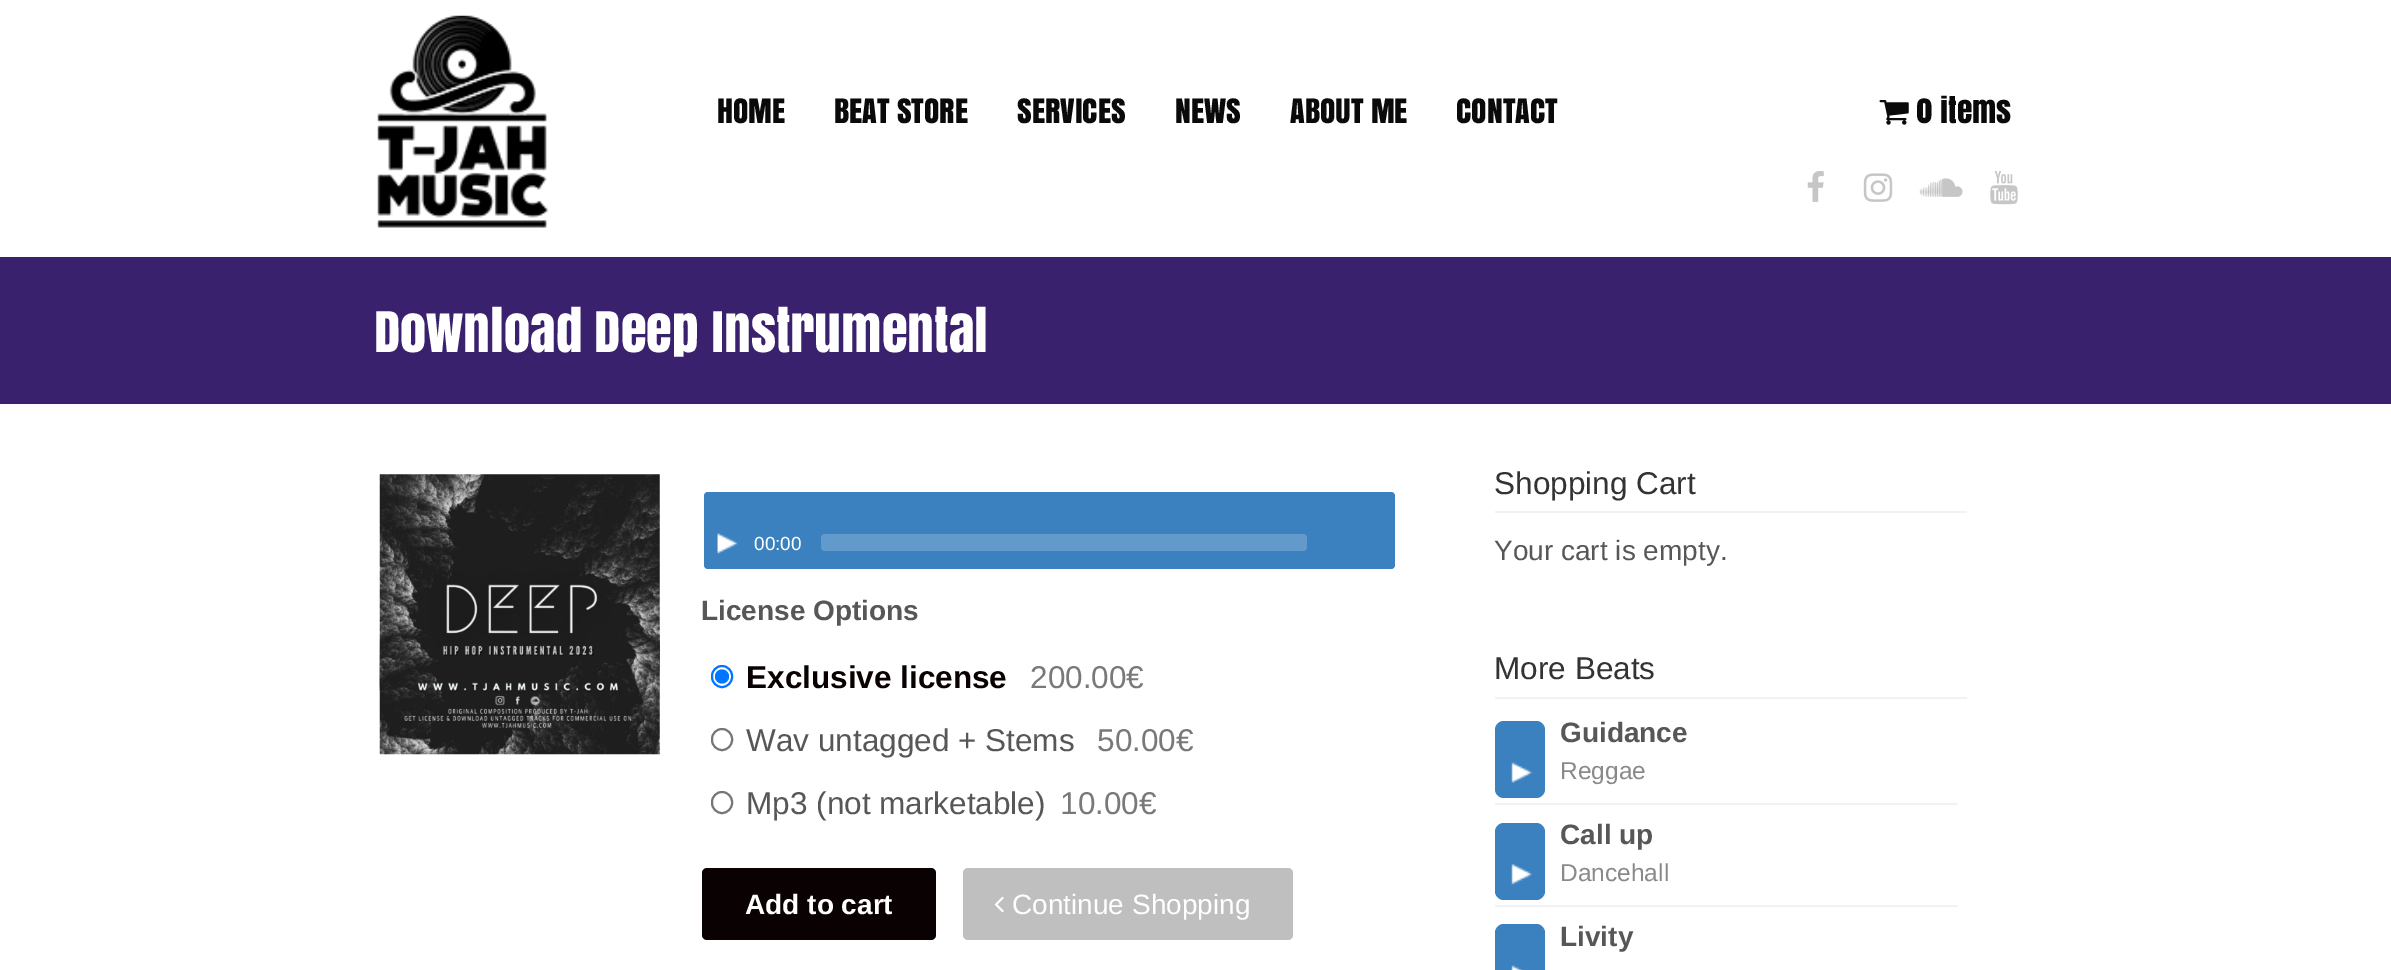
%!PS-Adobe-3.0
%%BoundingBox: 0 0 2391 970
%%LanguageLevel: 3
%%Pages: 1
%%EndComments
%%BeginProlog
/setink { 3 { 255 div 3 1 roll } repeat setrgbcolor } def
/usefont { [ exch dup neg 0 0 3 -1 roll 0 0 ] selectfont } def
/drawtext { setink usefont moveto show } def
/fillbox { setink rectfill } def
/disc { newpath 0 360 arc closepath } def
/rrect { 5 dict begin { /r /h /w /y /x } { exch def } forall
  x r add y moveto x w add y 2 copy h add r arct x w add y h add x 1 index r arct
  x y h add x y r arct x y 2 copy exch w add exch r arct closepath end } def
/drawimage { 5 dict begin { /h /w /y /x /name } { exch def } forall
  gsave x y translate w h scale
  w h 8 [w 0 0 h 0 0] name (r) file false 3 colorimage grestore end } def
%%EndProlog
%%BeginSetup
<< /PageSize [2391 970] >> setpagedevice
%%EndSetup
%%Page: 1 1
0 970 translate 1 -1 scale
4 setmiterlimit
0 0 2391 970 255 255 255 fillbox
(assets/img1.rgb) 377 15 172 213 drawimage
(assets/img2.rgb) 1807 171 17 31 drawimage
(assets/img3.rgb) 1863 173 30 29 drawimage
(assets/img4.rgb) 1919 178 44 19 drawimage
(assets/img5.rgb) 1990 171 28 34 drawimage
(HOME) 717 123 /Anton-Regular 31.5 10 10 10 drawtext
(BEAT STORE) 834 123 /Anton-Regular 31.5 10 10 10 drawtext
(SERVICES) 1017 123 /Anton-Regular 31.5 10 10 10 drawtext
(NEWS) 1175 123 /Anton-Regular 31.5 10 10 10 drawtext
(ABOUT ME) 1290 123 /Anton-Regular 31.5 10 10 10 drawtext
(CONTACT) 1456 123 /Anton-Regular 31.5 10 10 10 drawtext
(assets/img6.rgb) 1879 100 30 25 drawimage
(0 items) 1916 123 /Anton-Regular 31.5 10 10 10 drawtext
0 257 2391 147 58 33 109 fillbox
(Download Deep Instrumental) 374 352 /Anton-Regular 52.5 255 255 255 drawtext
(assets/img7.rgb) 379 632 281 59 drawimage
(assets/img8.rgb) 379 474 281 281 drawimage
59 129 191 setink
704 492 691 77 4 rrect fill
(assets/img9.rgb) 717 533 21 21 drawimage
(00:00) 754 550 /LiberationSans-Regular 19 255 255 255 drawtext
98 154 204 setink
821 534 486 17 4 rrect fill
(License Options) 701 620 /LiberationSans-Bold 28 87 87 87 drawtext
0 117 255 setink
2 setlinewidth
712 666 20 21 10 rrect stroke
722 676.5 7 disc fill
(Exclusive license) 746 688 /LiberationSans-Bold 31.5 10 2 2 drawtext
(200.00€) 1030 688 /LiberationSans-Regular 31.5 121 121 121 drawtext
118 118 118 setink
712 729 20 21 10 rrect stroke
(Wav untagged + Stems) 746 751 /LiberationSans-Regular 31.5 87 87 87 drawtext
(50.00€) 1097 751 /LiberationSans-Regular 31.5 121 121 121 drawtext
118 118 118 setink
712 792 20 21 10 rrect stroke
(Mp3 \(not marketable\)) 746 814 /LiberationSans-Regular 31.5 87 87 87 drawtext
(10.00€) 1060 814 /LiberationSans-Regular 31.5 121 121 121 drawtext
10 2 2 setink
702 868 234 72 5 rrect fill
(Add to cart) 745 914 /LiberationSans-Bold 28 255 255 255 drawtext
191 191 191 setink
963 868 330 72 5 rrect fill
(assets/img10.rgb) 994 896 10 17 drawimage
(Continue Shopping) 1012 914 /LiberationSans-Regular 28 255 255 255 drawtext
1495 511 472 2 242 242 242 fillbox
(Shopping Cart) 1494 494 /LiberationSans-Regular 31.5 51 51 51 drawtext
(Your cart is empty.) 1494 560 /LiberationSans-Regular 28 87 87 87 drawtext
1495 697 472 2 242 242 242 fillbox
(More Beats) 1494 679 /LiberationSans-Regular 31.5 51 51 51 drawtext
1495 803 463 2 242 242 242 fillbox
59 129 191 setink
1495 721 50 77 9 rrect fill
(assets/img11.rgb) 1511 762 21 21 drawimage
(Guidance) 1560 742 /LiberationSans-Bold 28 87 87 87 drawtext
(Reggae) 1560 779 /LiberationSans-Regular 24.5 137 137 137 drawtext
1495 905 463 2 242 242 242 fillbox
59 129 191 setink
1495 823 50 77 9 rrect fill
(assets/img12.rgb) 1511 864 21 21 drawimage
(Call up) 1560 844 /LiberationSans-Bold 28 87 87 87 drawtext
(Dancehall) 1560 881 /LiberationSans-Regular 24.5 137 137 137 drawtext
59 129 191 setink
1495 924 50 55 9 rrect fill
(assets/img13.rgb) 1511 965 12 5 drawimage
(Livity) 1560 946 /LiberationSans-Bold 28 87 87 87 drawtext
showpage
%%EOF
